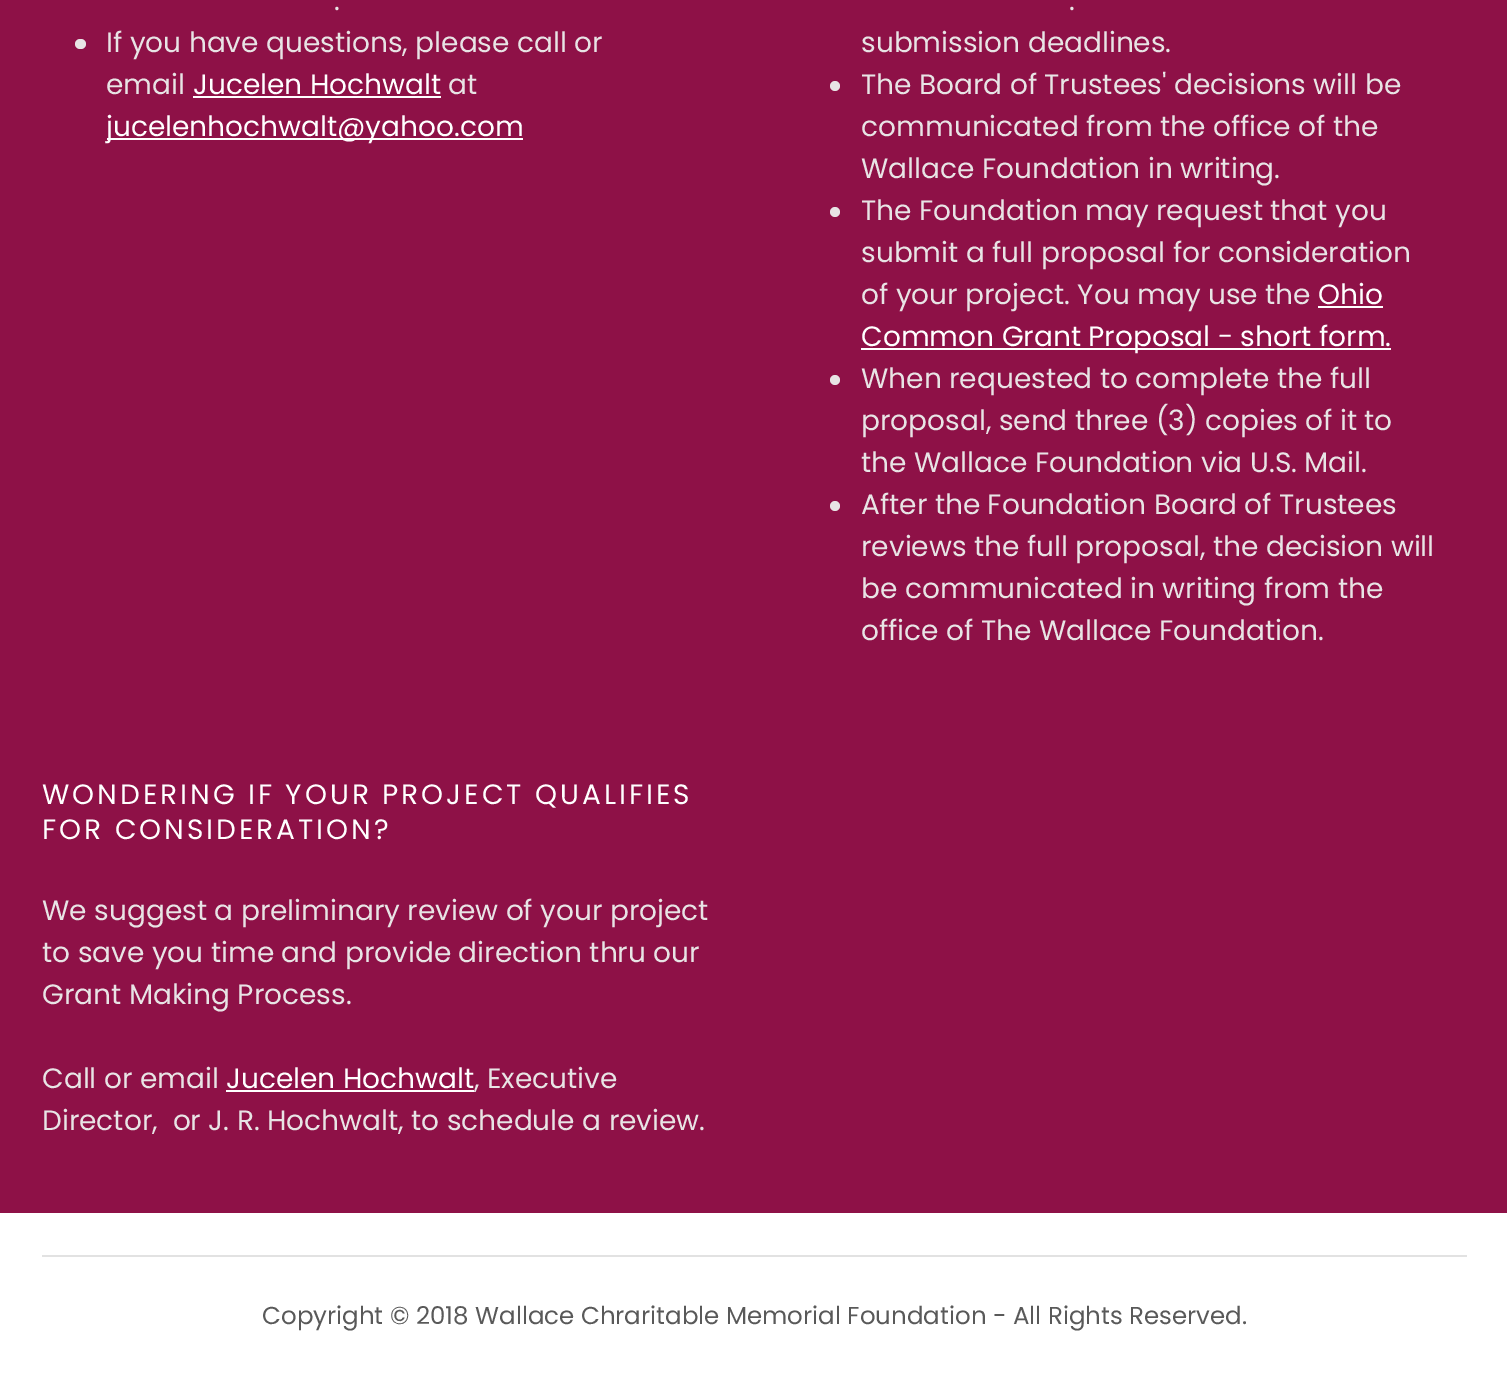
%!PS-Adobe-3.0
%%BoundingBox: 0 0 1507 1390
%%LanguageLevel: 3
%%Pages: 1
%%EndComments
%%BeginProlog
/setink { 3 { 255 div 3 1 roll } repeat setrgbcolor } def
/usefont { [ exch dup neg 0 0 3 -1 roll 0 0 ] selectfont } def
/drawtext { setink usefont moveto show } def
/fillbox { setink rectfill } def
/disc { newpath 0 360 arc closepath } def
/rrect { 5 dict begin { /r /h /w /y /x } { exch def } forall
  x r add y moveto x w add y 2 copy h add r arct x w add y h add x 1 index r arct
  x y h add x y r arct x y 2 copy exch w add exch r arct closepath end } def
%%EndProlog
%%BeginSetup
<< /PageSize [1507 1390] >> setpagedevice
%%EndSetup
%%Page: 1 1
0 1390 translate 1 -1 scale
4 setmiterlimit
0 0 1507 1390 255 255 255 fillbox
0 0 1507 1213 142 17 71 fillbox
(.) 334 10 /Poppins-Regular 28 232 228 229 drawtext
75 39 11 10 5 rrect fill
(If you have questions, please call or) 106 52 /Poppins-Regular 28 232 228 229 drawtext
(email) 106 94 /Poppins-Regular 28 232 228 229 drawtext
(Jucelen Hochwalt) 193 94 /Poppins-Regular 28 255 255 255 drawtext
193 96 248 2 255 255 255 fillbox
(at) 448 94 /Poppins-Regular 28 232 228 229 drawtext
107 138 416 2 255 255 255 fillbox
(jucelenhochwalt@yahoo.com) 106 136 /Poppins-Regular 28 255 255 255 drawtext
(.) 1069 10 /Poppins-Regular 28 232 228 229 drawtext
(submission deadlines.) 861 52 /Poppins-Regular 28 232 228 229 drawtext
835 86 5 disc fill
(The Board of Trustees' decisions will be) 861 94 /Poppins-Regular 28 232 228 229 drawtext
(communicated from the office of the) 861 136 /Poppins-Regular 28 232 228 229 drawtext
(Wallace Foundation in writing.) 861 178 /Poppins-Regular 28 232 228 229 drawtext
835 212 5 disc fill
(The Foundation may request that you) 861 220 /Poppins-Regular 28 232 228 229 drawtext
(submit a full proposal for consideration) 861 262 /Poppins-Regular 28 232 228 229 drawtext
(of your project. You may use the) 861 304 /Poppins-Regular 28 232 228 229 drawtext
(Ohio) 1318 304 /Poppins-Regular 28 255 255 255 drawtext
1318 306 65 2 255 255 255 fillbox
861 348 530 2 255 255 255 fillbox
(Common Grant Proposal - short form.) 861 346 /Poppins-Regular 28 255 255 255 drawtext
232 228 229 setink
835 380 5 disc fill
(When requested to complete the full) 861 388 /Poppins-Regular 28 232 228 229 drawtext
(proposal, send three \(3\) copies of it to) 861 430 /Poppins-Regular 28 232 228 229 drawtext
(the Wallace Foundation via U.S. Mail.) 861 472 /Poppins-Regular 28 232 228 229 drawtext
835 506 5 disc fill
(After the Foundation Board of Trustees) 861 514 /Poppins-Regular 28 232 228 229 drawtext
(reviews the full proposal, the decision will) 861 556 /Poppins-Regular 28 232 228 229 drawtext
(be communicated in writing from the) 861 598 /Poppins-Regular 28 232 228 229 drawtext
(office of The Wallace Foundation.) 861 640 /Poppins-Regular 28 232 228 229 drawtext
255 255 255 setink
42 804 moveto 3 0 (WONDERING IF YOUR PROJECT QUALIFIES) ashow
42 839 moveto 3 0 (FOR CONSIDERATION?) ashow
(We suggest a preliminary review of your project) 42 920 /Poppins-Regular 28 232 228 229 drawtext
(to save you time and provide direction thru our) 42 962 /Poppins-Regular 28 232 228 229 drawtext
(Grant Making Process.) 42 1004 /Poppins-Regular 28 232 228 229 drawtext
(Call or email) 42 1088 /Poppins-Regular 28 232 228 229 drawtext
(Jucelen Hochwalt) 226 1088 /Poppins-Regular 28 255 255 255 drawtext
226 1090 248 2 255 255 255 fillbox
(, Executive) 474 1088 /Poppins-Regular 28 232 228 229 drawtext
(Director,  or J. R. Hochwalt, to schedule a review.) 42 1130 /Poppins-Regular 28 232 228 229 drawtext
42 1255 1425 2 226 226 226 fillbox
(Copyright © 2018 Wallace Chraritable Memorial Foundation - All Rights Reserved.) 262 1324 /Poppins-Regular 24.5 89 89 89 drawtext
showpage
%%EOF
